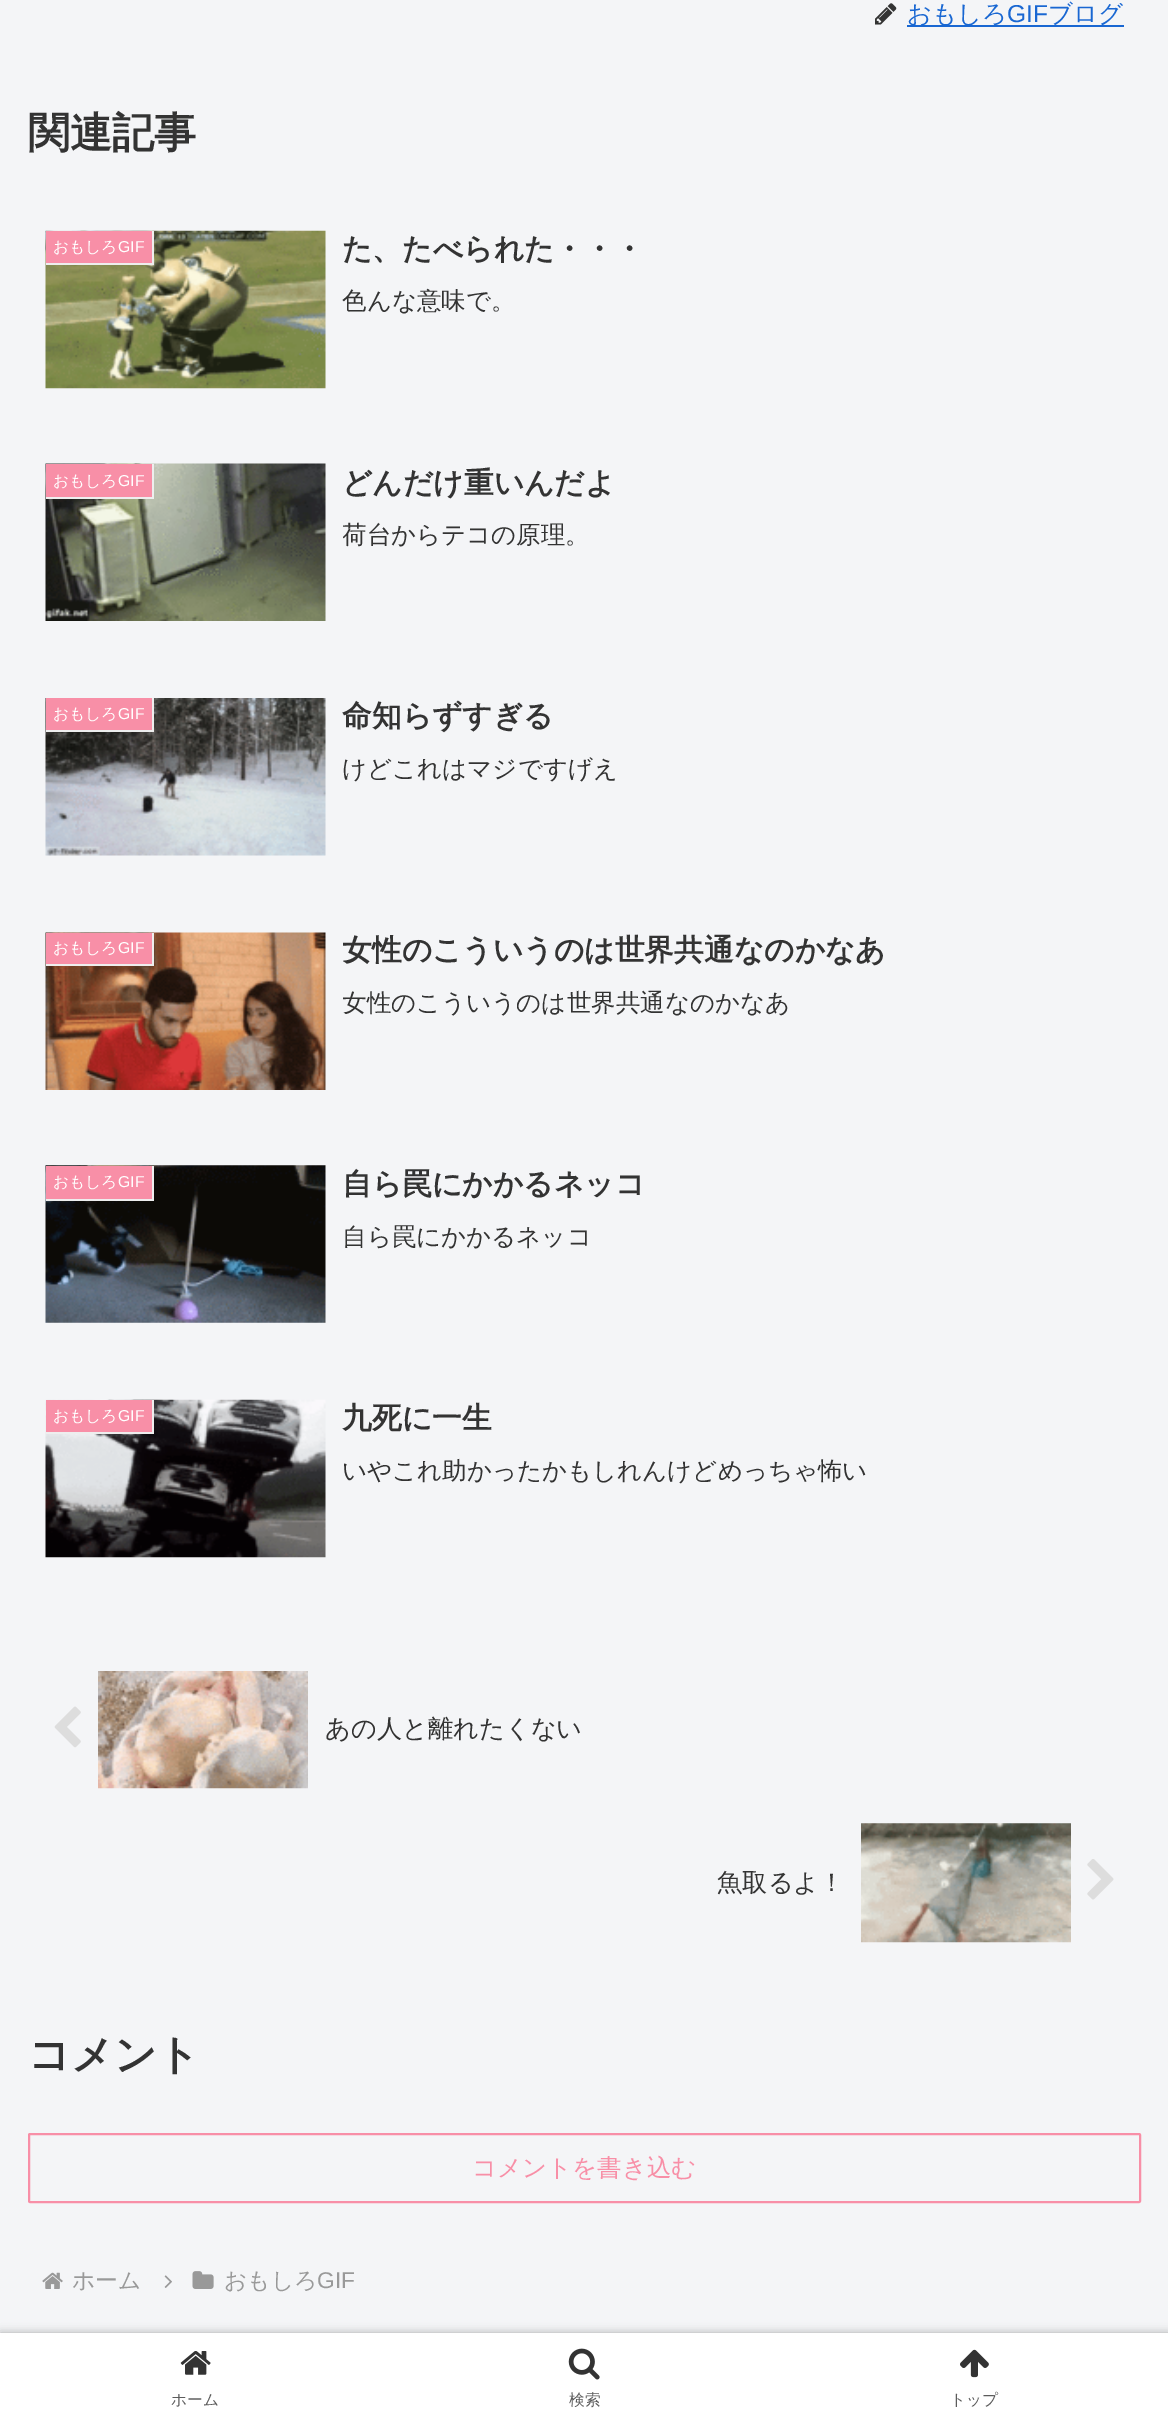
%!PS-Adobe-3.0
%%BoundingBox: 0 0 1168 2419
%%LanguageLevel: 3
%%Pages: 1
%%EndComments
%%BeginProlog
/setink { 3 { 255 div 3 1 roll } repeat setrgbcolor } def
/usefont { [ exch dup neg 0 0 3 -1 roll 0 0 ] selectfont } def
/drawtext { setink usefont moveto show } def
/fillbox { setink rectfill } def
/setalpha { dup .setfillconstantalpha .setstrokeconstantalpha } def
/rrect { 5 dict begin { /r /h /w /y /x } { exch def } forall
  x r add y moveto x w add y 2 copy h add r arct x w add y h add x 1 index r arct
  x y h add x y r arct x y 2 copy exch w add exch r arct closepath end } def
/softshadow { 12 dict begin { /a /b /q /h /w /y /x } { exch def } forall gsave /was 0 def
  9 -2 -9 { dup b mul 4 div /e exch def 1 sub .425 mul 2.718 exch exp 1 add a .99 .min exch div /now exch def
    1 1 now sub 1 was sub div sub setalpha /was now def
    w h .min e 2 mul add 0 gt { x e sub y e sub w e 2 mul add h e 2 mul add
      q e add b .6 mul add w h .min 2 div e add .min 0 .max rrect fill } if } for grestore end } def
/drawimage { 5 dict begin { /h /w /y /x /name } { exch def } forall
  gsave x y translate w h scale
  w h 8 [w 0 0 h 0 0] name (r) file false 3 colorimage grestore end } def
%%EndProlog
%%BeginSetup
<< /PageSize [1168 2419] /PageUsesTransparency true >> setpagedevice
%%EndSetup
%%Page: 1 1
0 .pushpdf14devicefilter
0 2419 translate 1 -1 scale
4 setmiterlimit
0 0 1168 2419 244 245 247 fillbox
(assets/img1.rgb) 875 3 22 22 drawimage
907 25 217 2 25 103 210 fillbox
(おもしろ) 907 22 /WenQuanYiZenHei-Medium 24.5 25 103 210 drawtext
(GIF) 1007 22 /LiberationSans-Regular 24.5 25 103 210 drawtext
(ブログ) 1048 22 /WenQuanYiZenHei-Medium 24.5 25 103 210 drawtext
(関連記事) 28 147 /WenQuanYiZenHei-Bold 42 51 51 51 drawtext
(assets/img2.rgb) 45 230 281 159 drawimage
46 231 106 32 248 143 167 fillbox
152 231 2 33 238 238 238 fillbox
46 263 108 2 238 238 238 fillbox
(おもしろ) 53 252 /WenQuanYiZenHei-Medium 15.75 255 255 255 drawtext
(GIF) 118 252 /LiberationSans-Regular 15.75 255 255 255 drawtext
(た、たべられた・・・) 342 259 /WenQuanYiZenHei-Bold 29.75 51 51 51 drawtext
(色んな意味で。) 342 309 /WenQuanYiZenHei-Medium 24.5 51 51 51 drawtext
(assets/img3.rgb) 45 463 281 158 drawimage
46 464 106 33 248 143 167 fillbox
152 464 2 35 238 238 238 fillbox
46 497 108 2 238 238 238 fillbox
(おもしろ) 53 486 /WenQuanYiZenHei-Medium 15.75 255 255 255 drawtext
(GIF) 118 486 /LiberationSans-Regular 15.75 255 255 255 drawtext
(どんだけ重いんだよ) 342 493 /WenQuanYiZenHei-Bold 29.75 51 51 51 drawtext
gsave
343 518 781 33 rectclip
(荷台からテコの原理。) 342 543 /WenQuanYiZenHei-Medium 24.5 51 51 51 drawtext
grestore
(assets/img4.rgb) 45 698 281 158 drawimage
46 698 106 32 248 143 167 fillbox
152 698 2 34 238 238 238 fillbox
46 730 108 2 238 238 238 fillbox
(おもしろ) 53 719 /WenQuanYiZenHei-Medium 15.75 255 255 255 drawtext
(GIF) 118 719 /LiberationSans-Regular 15.75 255 255 255 drawtext
(命知らずすぎる) 342 726 /WenQuanYiZenHei-Bold 29.75 51 51 51 drawtext
(けどこれはマジですげえ) 342 777 /WenQuanYiZenHei-Medium 24.5 51 51 51 drawtext
(assets/img5.rgb) 45 932 281 158 drawimage
46 933 106 31 248 143 167 fillbox
152 933 2 33 238 238 238 fillbox
46 964 108 2 238 238 238 fillbox
(おもしろ) 53 953 /WenQuanYiZenHei-Medium 15.75 255 255 255 drawtext
(GIF) 118 953 /LiberationSans-Regular 15.75 255 255 255 drawtext
gsave
343 928 781 47 rectclip
(女性のこういうのは世界共通なのかなあ) 342 960 /WenQuanYiZenHei-Bold 29.75 51 51 51 drawtext
grestore
gsave
343 987 781 32 rectclip
(女性のこういうのは世界共通なのかなあ) 342 1011 /WenQuanYiZenHei-Medium 24.5 51 51 51 drawtext
grestore
(assets/img6.rgb) 45 1165 281 158 drawimage
46 1166 106 33 248 143 167 fillbox
152 1166 2 35 238 238 238 fillbox
46 1199 108 2 238 238 238 fillbox
(おもしろ) 53 1187 /WenQuanYiZenHei-Medium 15.75 255 255 255 drawtext
(GIF) 118 1187 /LiberationSans-Regular 15.75 255 255 255 drawtext
(自ら罠にかかるネッコ) 342 1194 /WenQuanYiZenHei-Bold 29.75 51 51 51 drawtext
(自ら罠にかかるネッコ) 342 1245 /WenQuanYiZenHei-Medium 24.5 51 51 51 drawtext
(assets/img7.rgb) 45 1399 281 159 drawimage
46 1400 106 32 248 143 167 fillbox
152 1400 2 33 238 238 238 fillbox
46 1432 108 2 238 238 238 fillbox
(おもしろ) 53 1421 /WenQuanYiZenHei-Medium 15.75 255 255 255 drawtext
(GIF) 118 1421 /LiberationSans-Regular 15.75 255 255 255 drawtext
(九死に一生) 342 1428 /WenQuanYiZenHei-Bold 29.75 51 51 51 drawtext
(いやこれ助かったかもしれんけどめっちゃ怖い) 342 1479 /WenQuanYiZenHei-Medium 24.5 51 51 51 drawtext
(assets/img8.rgb) 54 1706 27 42 drawimage
(assets/img9.rgb) 98 1671 210 118 drawimage
(あの人と離れたくない) 325 1737 /WenQuanYiZenHei-Medium 25.25 51 51 51 drawtext
(魚取るよ！) 717 1891 /WenQuanYiZenHei-Medium 25.25 51 51 51 drawtext
(assets/img10.rgb) 861 1823 210 120 drawimage
(assets/img11.rgb) 1087 1859 27 41 drawimage
(コメント) 28 2069 /WenQuanYiZenHei-Bold 42 51 51 51 drawtext
248 143 167 setink
2 setlinewidth
29 2134 1111 68 1 rrect stroke
(コメントを書き込む) 472 2176 /WenQuanYiZenHei-Medium 24.5 248 143 167 drawtext
(assets/img12.rgb) 42 2272 21 17 drawimage
(ホーム) 72 2288 /WenQuanYiZenHei-Medium 22.75 153 153 153 drawtext
(assets/img13.rgb) 164 2275 8 13 drawimage
(assets/img14.rgb) 192 2271 22 18 drawimage
(おもしろ) 224 2288 /WenQuanYiZenHei-Medium 22.75 153 153 153 drawtext
(GIF) 317 2288 /LiberationSans-Regular 22.75 153 153 153 drawtext
169 169 169 setink
0 2333 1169 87 0 4.5 1 softshadow
0 2333 1168 86 255 255 255 fillbox
(assets/img15.rgb) 180 2351 31 24 drawimage
(ホーム) 171 2405 /WenQuanYiZenHei-Medium 15.75 92 92 92 drawtext
(assets/img16.rgb) 568 2348 32 32 drawimage
(検索) 569 2405 /WenQuanYiZenHei-Medium 15.75 92 92 92 drawtext
(assets/img17.rgb) 960 2349 29 29 drawimage
(トップ) 950 2405 /WenQuanYiZenHei-Medium 15.75 92 92 92 drawtext
.poppdf14devicefilter showpage
%%EOF
